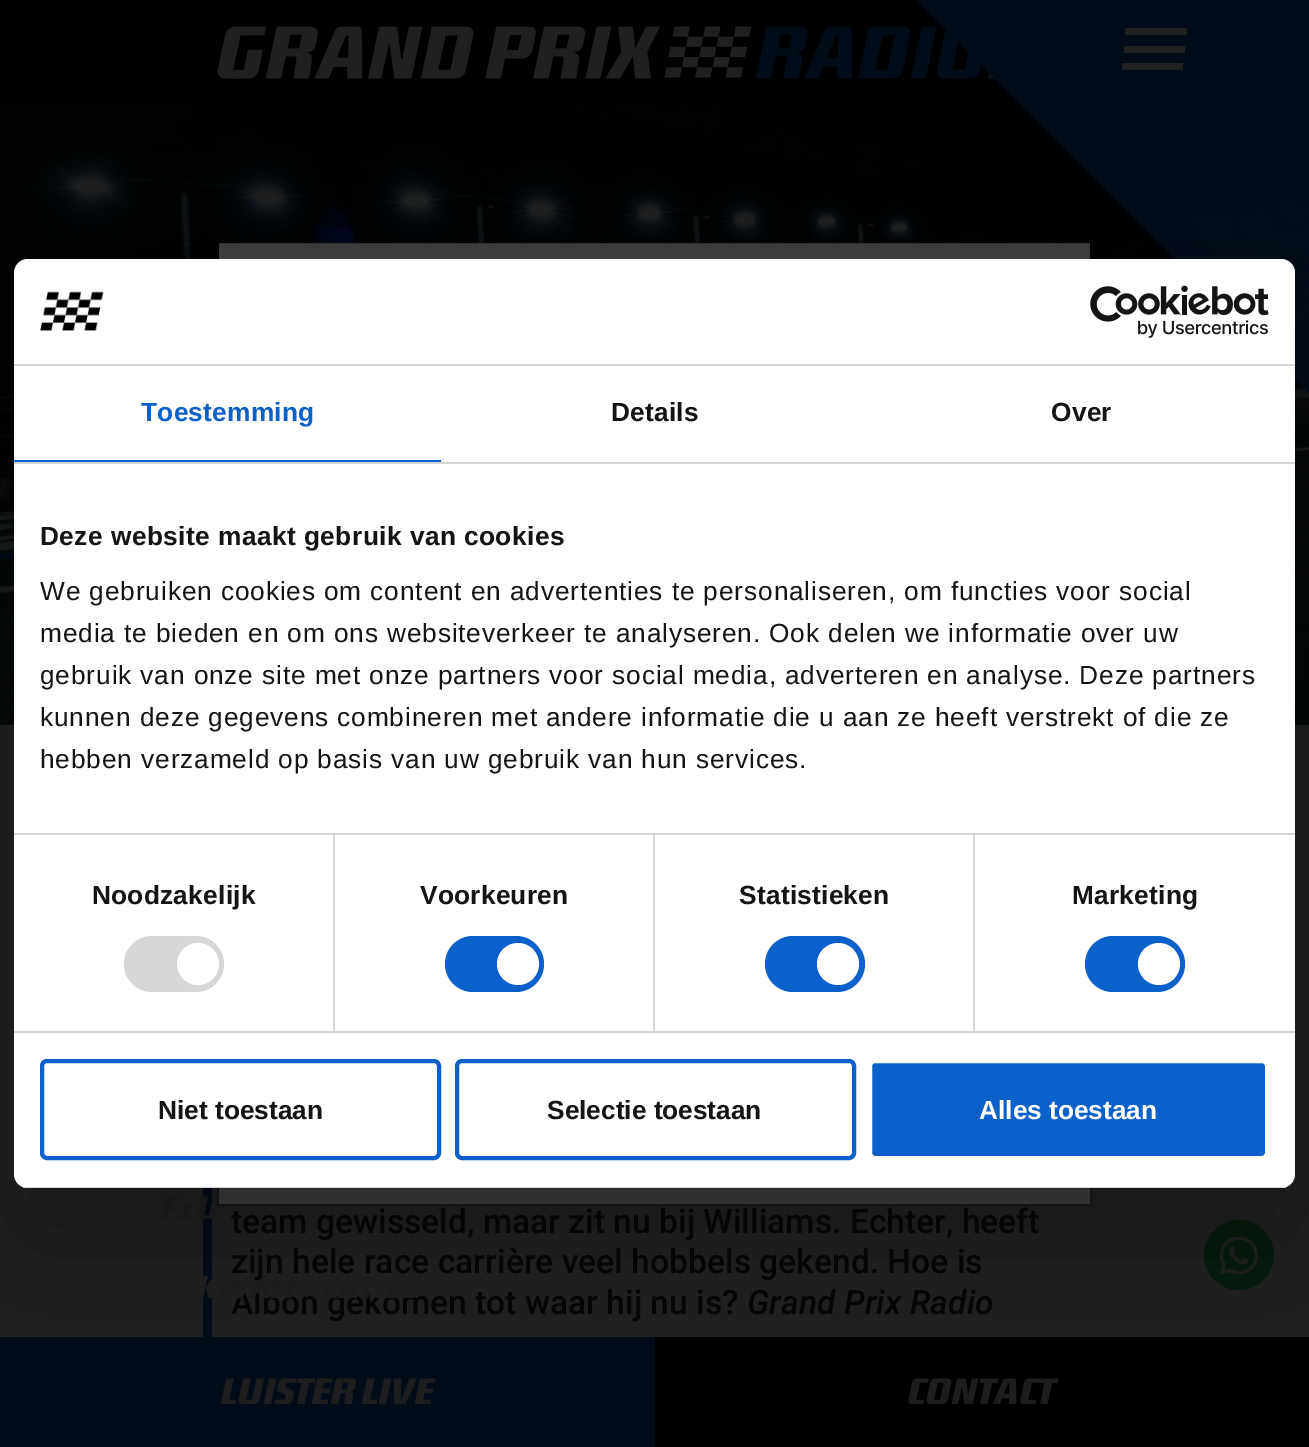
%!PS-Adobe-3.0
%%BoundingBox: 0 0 1309 1447
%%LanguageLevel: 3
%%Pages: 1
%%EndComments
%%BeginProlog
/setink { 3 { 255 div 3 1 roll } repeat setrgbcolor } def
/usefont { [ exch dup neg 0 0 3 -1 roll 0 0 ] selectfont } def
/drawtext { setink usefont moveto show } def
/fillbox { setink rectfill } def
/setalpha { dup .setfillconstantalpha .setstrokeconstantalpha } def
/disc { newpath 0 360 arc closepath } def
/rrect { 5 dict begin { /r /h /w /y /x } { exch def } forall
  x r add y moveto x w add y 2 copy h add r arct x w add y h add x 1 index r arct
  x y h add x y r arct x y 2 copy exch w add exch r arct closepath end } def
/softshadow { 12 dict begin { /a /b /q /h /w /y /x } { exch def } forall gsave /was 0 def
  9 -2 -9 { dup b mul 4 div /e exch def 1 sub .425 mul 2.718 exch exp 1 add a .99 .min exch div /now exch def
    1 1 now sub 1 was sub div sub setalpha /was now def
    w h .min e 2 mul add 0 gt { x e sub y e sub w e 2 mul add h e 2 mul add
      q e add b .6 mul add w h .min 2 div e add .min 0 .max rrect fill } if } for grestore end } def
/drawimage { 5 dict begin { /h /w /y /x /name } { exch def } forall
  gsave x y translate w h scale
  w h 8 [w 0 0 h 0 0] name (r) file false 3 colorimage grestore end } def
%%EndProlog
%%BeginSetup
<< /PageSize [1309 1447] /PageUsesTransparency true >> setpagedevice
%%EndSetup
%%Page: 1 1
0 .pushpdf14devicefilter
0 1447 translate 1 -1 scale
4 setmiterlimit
0 0 1309 1447 32 32 32 fillbox
0 0 1309 105 0 0 0 fillbox
(assets/img1.rgb) 217 26 823 53 drawimage
0 724 1309 1 2 12 25 fillbox
(assets/img2.rgb) 0 105 1309 620 drawimage
0.95 setalpha
917 0 moveto 1309 0 lineto 1309 392 lineto 1308 392 lineto 917 1 lineto closepath fill
1 setalpha
1125 28 62 7 32 32 32 fillbox
1124 46 61 7 32 32 32 fillbox
1122 63 61 7 32 32 32 fillbox
203 1188 9 149 2 12 25 fillbox
(F1 U) 161 1219 /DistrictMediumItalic-MediumItalic 31.5 29 29 30 drawtext
219 243 871 961 64 64 64 fillbox
0.18 setalpha
0 0 0 setink
2 setlinewidth
218 243 873 962 rectstroke
1 setalpha
5 27 13 setink
1239 1255 35 disc fill
(assets/img5.rgb) 1220 1236 38 39 drawimage
0 1337 655 110 2 12 25 fillbox
655 1337 654 110 0 0 0 fillbox
14 315 1281 929 14 59.5 0.3 softshadow
255 255 255 setink
14 259 1281 929 14 rrect fill
14 364 1281 2 214 214 214 fillbox
(assets/img3.rgb) 40 291 64 40 drawimage
(assets/img4.rgb) 1090 285 179 53 drawimage
14 462 1281 2 214 214 214 fillbox
14 460 427 2 12 96 202 fillbox
/LiberationSans-Bold 26.25 usefont
141 421 moveto 0.25 0 (Toestemming) ashow
20 20 20 setink
611 421 moveto 0.25 0 (Details) ashow
1051 421 moveto 0.25 0 (Over) ashow
14 833 1281 2 214 214 214 fillbox
20 20 20 setink
40 545 moveto 0.45 0 (Deze website maakt gebruik van cookies) ashow
/LiberationSans-Regular 26.25 usefont
40 600 moveto 0.88 0 (We gebruiken cookies om content en advertenties te personaliseren, om functies voor social) ashow
40 642 moveto 0.88 0 (media te bieden en om ons websiteverkeer te analyseren. Ook delen we informatie over uw) ashow
40 684 moveto 0.88 0 (gebruik van onze site met onze partners voor social media, adverteren en analyse. Deze partners) ashow
40 726 moveto 0.88 0 (kunnen deze gegevens combineren met andere informatie die u aan ze heeft verstrekt of die ze) ashow
40 768 moveto 0.88 0 (hebben verzameld op basis van uw gebruik van hun services.) ashow
14 1031 1281 2 214 214 214 fillbox
333 835 2 196 214 214 214 fillbox
/LiberationSans-Bold 26.25 usefont
20 20 20 setink
92 904 moveto 0.25 0 (Noodzakelijk) ashow
214 214 214 setink
124 936 100 56 28 rrect fill
255 255 255 setink
198 964 21 disc fill
653 835 2 196 214 214 214 fillbox
20 20 20 setink
420 904 moveto 0.25 0 (Voorkeuren) ashow
12 96 202 setink
445 936 99 56 28 rrect fill
255 255 255 setink
518 964 21 disc fill
973 835 2 196 214 214 214 fillbox
20 20 20 setink
739 904 moveto 0.25 0 (Statistieken) ashow
12 96 202 setink
765 936 100 56 28 rrect fill
255 255 255 setink
838 964 21 disc fill
20 20 20 setink
1072 904 moveto 0.25 0 (Marketing) ashow
12 96 202 setink
1085 936 100 56 28 rrect fill
255 255 255 setink
1159 964 21 disc fill
gsave
14 259 1281 929 14 rrect clip newpath
23 1187 1263 1 214 214 214 fillbox
grestore
12 96 202 setink
4 setlinewidth
42 1061 397 97 5 rrect stroke
(Niet toestaan) 158 1119 /LiberationSans-Bold 26.25 20 20 20 drawtext
12 96 202 setink
457 1061 397 97 5 rrect stroke
(Selectie toestaan) 547 1119 /LiberationSans-Bold 26.25 20 20 20 drawtext
12 96 202 setink
870 1061 397 97 5 rrect gsave fill grestore
255 255 255 setink
stroke
(Alles toestaan) 979 1119 /LiberationSans-Bold 26.25 255 255 255 drawtext
(Albon gekomen tot waar hij nu is?) 231 1314 /Roboto-Medium 33.6 4 5 5 drawtext
(F1 KWALIFICATIES) 161 1298 /DistrictMediumItalic-MediumItalic 31.5 29 29 30 drawtext
(team gewisseld, maar zit nu bij Williams. Echter, heeft) 231 1233 /Roboto-Medium 33.6 4 5 5 drawtext
(zijn hele race carrière veel hobbels gekend. Hoe is) 231 1273 /Roboto-Medium 33.6 4 5 5 drawtext
(Grand Prix Radio) 747 1314 /Roboto-MediumItalic 33.6 4 5 5 drawtext
(LUISTER LIVE) 221 1404 /DistrictMediumItalic-MediumItalic 36 29 29 30 drawtext
(CONTACT) 908 1404 /DistrictMediumItalic-MediumItalic 36 29 29 30 drawtext
.poppdf14devicefilter showpage
%%EOF
